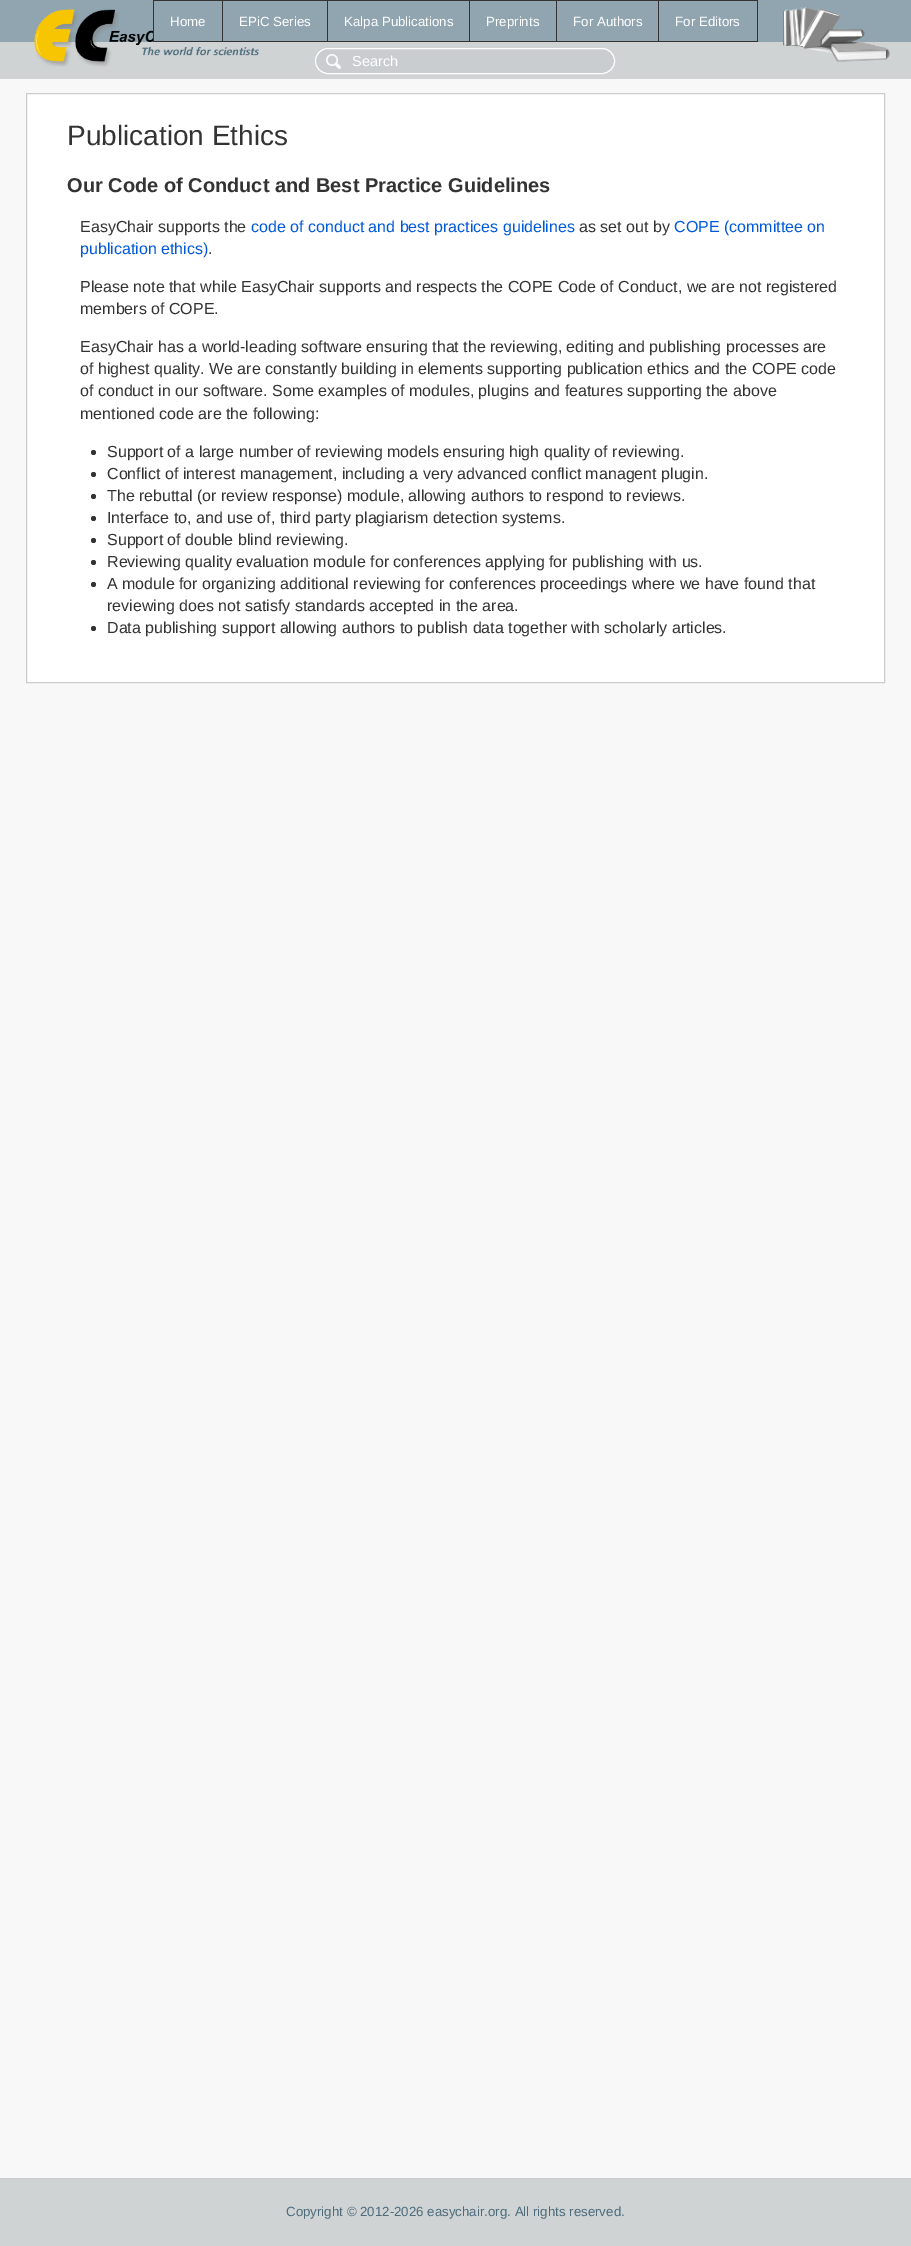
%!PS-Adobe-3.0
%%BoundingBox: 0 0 911 2246
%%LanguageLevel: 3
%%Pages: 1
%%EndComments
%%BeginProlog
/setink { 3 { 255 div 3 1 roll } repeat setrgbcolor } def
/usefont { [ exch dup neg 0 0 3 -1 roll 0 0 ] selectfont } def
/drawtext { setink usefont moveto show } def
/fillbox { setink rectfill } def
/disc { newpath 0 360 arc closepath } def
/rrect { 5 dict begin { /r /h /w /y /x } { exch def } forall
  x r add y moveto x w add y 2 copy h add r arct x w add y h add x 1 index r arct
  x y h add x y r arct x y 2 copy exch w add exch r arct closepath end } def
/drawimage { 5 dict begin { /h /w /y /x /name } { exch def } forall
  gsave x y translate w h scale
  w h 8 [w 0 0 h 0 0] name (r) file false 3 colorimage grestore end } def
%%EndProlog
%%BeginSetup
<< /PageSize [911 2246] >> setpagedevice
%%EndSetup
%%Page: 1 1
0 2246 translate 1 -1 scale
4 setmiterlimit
0 0 911 2246 144 165 176 fillbox
0 43 910 35 208 211 212 fillbox
0 42 911 1 208 211 212 fillbox
(assets/img1.rgb) 34 9 225 58 drawimage
658 0 100 1 51 51 51 fillbox
757 0 1 42 51 51 51 fillbox
658 41 100 1 51 51 51 fillbox
658 0 1 42 51 51 51 fillbox
556 0 103 1 51 51 51 fillbox
556 41 103 1 51 51 51 fillbox
556 0 1 42 51 51 51 fillbox
469 0 88 1 51 51 51 fillbox
469 41 88 1 51 51 51 fillbox
469 0 1 42 51 51 51 fillbox
327 0 143 1 51 51 51 fillbox
327 41 143 1 51 51 51 fillbox
327 0 1 42 51 51 51 fillbox
222 0 106 1 51 51 51 fillbox
222 41 106 1 51 51 51 fillbox
222 0 1 42 51 51 51 fillbox
153 0 70 1 51 51 51 fillbox
153 41 70 1 51 51 51 fillbox
153 0 1 42 51 51 51 fillbox
154 30 31 11 144 165 176 fillbox
(Home) 170 26 /LiberationSans-Regular 13.3 255 255 255 drawtext
(EPiC Series) 239 26 /LiberationSans-Regular 13.3 255 255 255 drawtext
(Kalpa Publications) 344 26 /LiberationSans-Regular 13.3 255 255 255 drawtext
(Preprints) 486 26 /LiberationSans-Regular 13.3 255 255 255 drawtext
(For Authors) 573 26 /LiberationSans-Regular 13.3 255 255 255 drawtext
(For Editors) 675 26 /LiberationSans-Regular 13.3 255 255 255 drawtext
(assets/img2.rgb) 783 6 107 56 drawimage
910 42 1 37 208 211 212 fillbox
0 78 911 1 208 211 212 fillbox
201 205 208 setink
315 48 300 26 13 rrect fill
(assets/img3.rgb) 326 54 15 15 drawimage
255 255 255 setink
315.5 48.5 299 25 12.5 rrect stroke
(Search) 352 66 /LiberationSans-Regular 14.5 255 255 255 drawtext
0 79 911 2099 248 248 248 fillbox
255 255 255 setink
26.5 93.5 moveto 884.5 93.5 lineto 884.5 682.5 lineto 26.5 682.5 lineto closepath gsave fill grestore
204 204 204 setink
stroke
(Publication Ethics) 67 145 /LiberationSans-Regular 28 51 51 51 drawtext
(Our Code of Conduct and Best Practice Guidelines) 67 192 /LiberationSans-Bold 20 51 51 51 drawtext
(EasyChair supports the) 80 232 /LiberationSans-Regular 16 51 51 51 drawtext
(code of conduct and best practices guidelines) 251 232 /LiberationSans-Regular 16 0 89 219 drawtext
(as set out by) 579 232 /LiberationSans-Regular 16 51 51 51 drawtext
(COPE \(committee on) 674 232 /LiberationSans-Regular 16 0 89 219 drawtext
(publication ethics\)) 80 254 /LiberationSans-Regular 16 0 89 219 drawtext
(.) 208 254 /LiberationSans-Regular 16 51 51 51 drawtext
(Please note that while EasyChair supports and respects the COPE Code of Conduct, we are not registered) 80 292 /LiberationSans-Regular 16 51 51 51 drawtext
(members of COPE.) 80 314 /LiberationSans-Regular 16 51 51 51 drawtext
(EasyChair has a world-leading software ensuring that the reviewing, editing and publishing processes are) 80 352 /LiberationSans-Regular 16 51 51 51 drawtext
(of highest quality. We are constantly building in elements supporting publication ethics and the COPE code) 80 374 /LiberationSans-Regular 16 51 51 51 drawtext
(of conduct in our software. Some examples of modules, plugins and features supporting the above) 80 396 /LiberationSans-Regular 16 51 51 51 drawtext
(mentioned code are the following:) 80 419 /LiberationSans-Regular 16 51 51 51 drawtext
93.5 452.5 2.5 disc fill
(Support of a large number of reviewing models ensuring high quality of reviewing.) 107 457 /LiberationSans-Regular 16 51 51 51 drawtext
93.5 474.5 2.5 disc fill
(Conflict of interest management, including a very advanced conflict managent plugin.) 107 479 /LiberationSans-Regular 16 51 51 51 drawtext
93.5 496.5 2.5 disc fill
(The rebuttal \(or review response\) module, allowing authors to respond to reviews.) 107 501 /LiberationSans-Regular 16 51 51 51 drawtext
93.5 518.5 2.5 disc fill
(Interface to, and use of, third party plagiarism detection systems.) 107 523 /LiberationSans-Regular 16 51 51 51 drawtext
93.5 540.5 2.5 disc fill
(Support of double blind reviewing.) 107 545 /LiberationSans-Regular 16 51 51 51 drawtext
93.5 562.5 2.5 disc fill
(Reviewing quality evaluation module for conferences applying for publishing with us.) 107 567 /LiberationSans-Regular 16 51 51 51 drawtext
93.5 584.5 2.5 disc fill
(A module for organizing additional reviewing for conferences proceedings where we have found that) 107 589 /LiberationSans-Regular 16 51 51 51 drawtext
(reviewing does not satisfy standards accepted in the area.) 107 611 /LiberationSans-Regular 16 51 51 51 drawtext
93.5 628.5 2.5 disc fill
(Data publishing support allowing authors to publish data together with scholarly articles.) 107 633 /LiberationSans-Regular 16 51 51 51 drawtext
0 2179 911 67 208 211 212 fillbox
0 2178 911 1 204 204 204 fillbox
(Copyright © 2012-2026 easychair.org. All rights reserved.) 286 2216 /LiberationSans-Regular 13.3 76 108 124 drawtext
showpage
%%EOF
